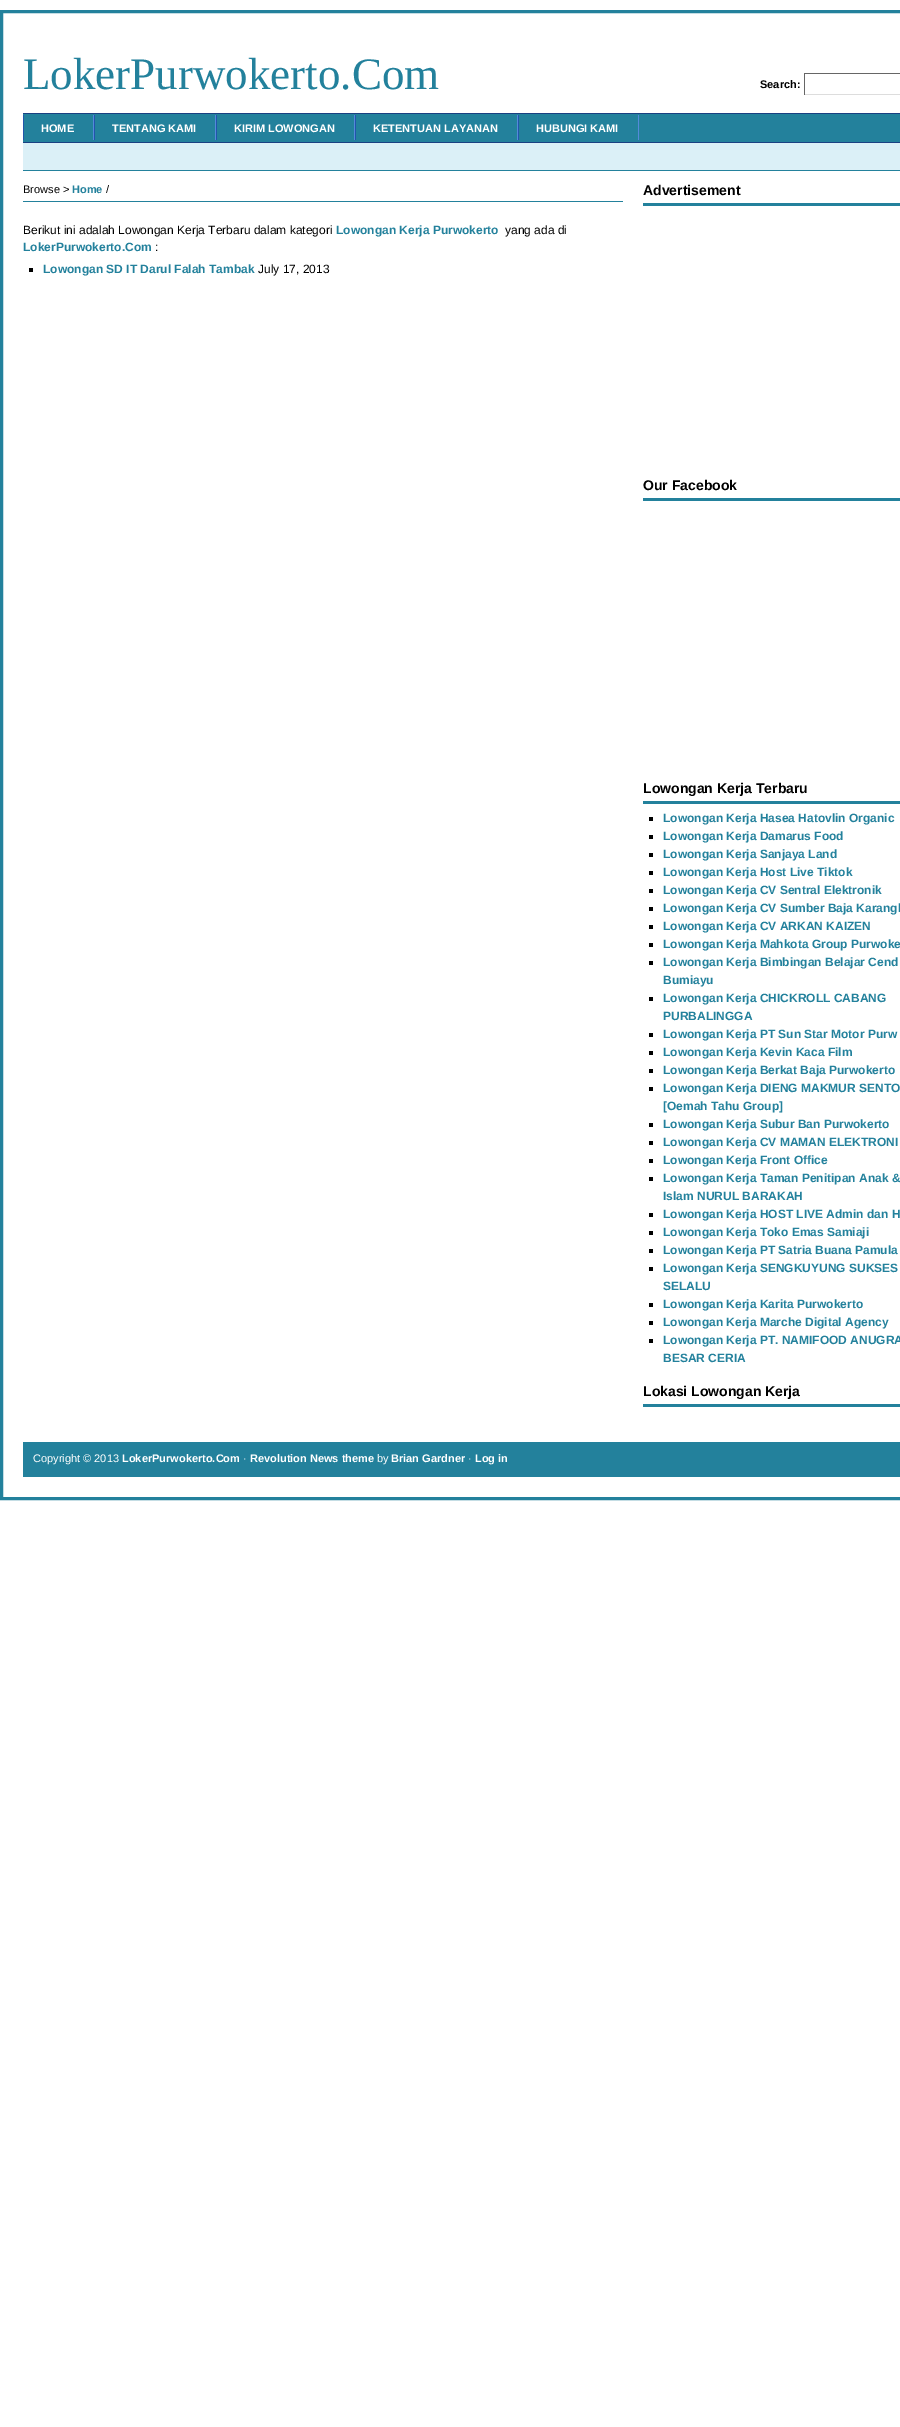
%!PS-Adobe-3.0
%%BoundingBox: 0 0 900 2427
%%LanguageLevel: 3
%%Pages: 1
%%EndComments
%%BeginProlog
/setink { 3 { 255 div 3 1 roll } repeat setrgbcolor } def
/usefont { [ exch dup neg 0 0 3 -1 roll 0 0 ] selectfont } def
/drawtext { setink usefont moveto show } def
/fillbox { setink rectfill } def
%%EndProlog
%%BeginSetup
<< /PageSize [900 2427] >> setpagedevice
%%EndSetup
%%Page: 1 1
0 2427 translate 1 -1 scale
4 setmiterlimit
0 0 900 2427 255 255 255 fillbox
35 129 156 setink
3 setlinewidth
1.5 11.5 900 1487 rectstroke
(LokerPurwokerto.Com) 23 89 /LiberationSerif-Regular 45 35 129 156 drawtext
(Search:) 760 88 /LiberationSans-Bold 11 0 0 0 drawtext
804 73 96 1 102 102 102 fillbox
804 94 96 1 221 221 221 fillbox
804 73 1 22 102 102 102 fillbox
23 114 877 28 35 129 156 fillbox
23 113 877 1 26 65 130 fillbox
23 142 877 1 26 65 130 fillbox
(HOME) 41 132 /LiberationSans-Bold 11 255 255 255 drawtext
93 115 1 25 84 138 218 fillbox
23 115 1 25 34 85 170 fillbox
(TENTANG KAMI) 112 132 /LiberationSans-Bold 11 255 255 255 drawtext
215 115 1 25 84 138 218 fillbox
94 115 1 25 34 85 170 fillbox
(KIRIM LOWONGAN) 234 132 /LiberationSans-Bold 11 255 255 255 drawtext
354 115 1 25 84 138 218 fillbox
216 115 1 25 34 85 170 fillbox
(KETENTUAN LAYANAN) 373 132 /LiberationSans-Bold 11 255 255 255 drawtext
517 115 1 25 84 138 218 fillbox
355 115 1 25 34 85 170 fillbox
(HUBUNGI KAMI) 536 132 /LiberationSans-Bold 11 255 255 255 drawtext
638 115 1 25 84 138 218 fillbox
518 115 1 25 34 85 170 fillbox
23 143 877 27 219 240 247 fillbox
23 170 877 1 35 129 156 fillbox
23 201 600 1 35 129 156 fillbox
(Browse >) 23 193 /LiberationSans-Regular 11 0 0 0 drawtext
(Home) 72 193 /LiberationSans-Bold 11 35 129 156 drawtext
(/) 106 193 /LiberationSans-Regular 11 0 0 0 drawtext
(Berikut ini adalah Lowongan Kerja Terbaru dalam kategori) 23 234 /LiberationSans-Regular 12 0 0 0 drawtext
(Lowongan Kerja Purwokerto) 336 234 /LiberationSans-Bold 12 35 129 156 drawtext
(yang ada di) 505 234 /LiberationSans-Regular 12 0 0 0 drawtext
(LokerPurwokerto.Com) 23 251 /LiberationSans-Bold 12 35 129 156 drawtext
(:) 155 251 /LiberationSans-Regular 12 0 0 0 drawtext
29 268 4 4 0 0 0 fillbox
(Lowongan SD IT Darul Falah Tambak) 43 273 /LiberationSans-Bold 12 35 129 156 drawtext
(July 17, 2013) 258 273 /LiberationSans-Regular 12 0 0 0 drawtext
643 203 257 3 35 129 156 fillbox
(Advertisement) 643 195 /LiberationSans-Bold 14 0 0 0 drawtext
643 498 257 3 35 129 156 fillbox
(Our Facebook) 643 490 /LiberationSans-Bold 14 0 0 0 drawtext
643 801 257 3 35 129 156 fillbox
(Lowongan Kerja Terbaru) 643 793 /LiberationSans-Bold 14 0 0 0 drawtext
649 817 4 4 0 0 0 fillbox
(Lowongan Kerja Hasea Hatovlin Organic) 663 822 /LiberationSans-Bold 12 35 129 156 drawtext
649 835 4 4 0 0 0 fillbox
(Lowongan Kerja Damarus Food) 663 840 /LiberationSans-Bold 12 35 129 156 drawtext
649 853 4 4 0 0 0 fillbox
(Lowongan Kerja Sanjaya Land) 663 858 /LiberationSans-Bold 12 35 129 156 drawtext
649 871 4 4 0 0 0 fillbox
(Lowongan Kerja Host Live Tiktok) 663 876 /LiberationSans-Bold 12 35 129 156 drawtext
649 889 4 4 0 0 0 fillbox
(Lowongan Kerja CV Sentral Elektronik) 663 894 /LiberationSans-Bold 12 35 129 156 drawtext
649 907 4 4 0 0 0 fillbox
(Lowongan Kerja CV Sumber Baja Karangl) 663 912 /LiberationSans-Bold 12 35 129 156 drawtext
649 925 4 4 0 0 0 fillbox
(Lowongan Kerja CV ARKAN KAIZEN) 663 930 /LiberationSans-Bold 12 35 129 156 drawtext
649 943 4 4 0 0 0 fillbox
(Lowongan Kerja Mahkota Group Purwoke) 663 948 /LiberationSans-Bold 12 35 129 156 drawtext
649 961 4 4 0 0 0 fillbox
(Lowongan Kerja Bimbingan Belajar Cend) 663 966 /LiberationSans-Bold 12 35 129 156 drawtext
(Bumiayu) 663 984 /LiberationSans-Bold 12 35 129 156 drawtext
649 997 4 4 0 0 0 fillbox
(Lowongan Kerja CHICKROLL CABANG) 663 1002 /LiberationSans-Bold 12 35 129 156 drawtext
(PURBALINGGA) 663 1020 /LiberationSans-Bold 12 35 129 156 drawtext
649 1033 4 4 0 0 0 fillbox
(Lowongan Kerja PT Sun Star Motor Purw) 663 1038 /LiberationSans-Bold 12 35 129 156 drawtext
649 1051 4 4 0 0 0 fillbox
(Lowongan Kerja Kevin Kaca Film) 663 1056 /LiberationSans-Bold 12 35 129 156 drawtext
649 1069 4 4 0 0 0 fillbox
(Lowongan Kerja Berkat Baja Purwokerto) 663 1074 /LiberationSans-Bold 12 35 129 156 drawtext
649 1087 4 4 0 0 0 fillbox
(Lowongan Kerja DIENG MAKMUR SENTO) 663 1092 /LiberationSans-Bold 12 35 129 156 drawtext
([Oemah Tahu Group]) 663 1110 /LiberationSans-Bold 12 35 129 156 drawtext
649 1123 4 4 0 0 0 fillbox
(Lowongan Kerja Subur Ban Purwokerto) 663 1128 /LiberationSans-Bold 12 35 129 156 drawtext
649 1141 4 4 0 0 0 fillbox
(Lowongan Kerja CV MAMAN ELEKTRONI) 663 1146 /LiberationSans-Bold 12 35 129 156 drawtext
649 1159 4 4 0 0 0 fillbox
(Lowongan Kerja Front Office) 663 1164 /LiberationSans-Bold 12 35 129 156 drawtext
649 1177 4 4 0 0 0 fillbox
(Lowongan Kerja Taman Penitipan Anak &) 663 1182 /LiberationSans-Bold 12 35 129 156 drawtext
(Islam NURUL BARAKAH) 663 1200 /LiberationSans-Bold 12 35 129 156 drawtext
649 1213 4 4 0 0 0 fillbox
(Lowongan Kerja HOST LIVE Admin dan H) 663 1218 /LiberationSans-Bold 12 35 129 156 drawtext
649 1231 4 4 0 0 0 fillbox
(Lowongan Kerja Toko Emas Samiaji) 663 1236 /LiberationSans-Bold 12 35 129 156 drawtext
649 1249 4 4 0 0 0 fillbox
(Lowongan Kerja PT Satria Buana Pamula) 663 1254 /LiberationSans-Bold 12 35 129 156 drawtext
649 1267 4 4 0 0 0 fillbox
(Lowongan Kerja SENGKUYUNG SUKSES) 663 1272 /LiberationSans-Bold 12 35 129 156 drawtext
(SELALU) 663 1290 /LiberationSans-Bold 12 35 129 156 drawtext
649 1303 4 4 0 0 0 fillbox
(Lowongan Kerja Karita Purwokerto) 663 1308 /LiberationSans-Bold 12 35 129 156 drawtext
649 1321 4 4 0 0 0 fillbox
(Lowongan Kerja Marche Digital Agency) 663 1326 /LiberationSans-Bold 12 35 129 156 drawtext
649 1339 4 4 0 0 0 fillbox
(Lowongan Kerja PT. NAMIFOOD ANUGRA) 663 1344 /LiberationSans-Bold 12 35 129 156 drawtext
(BESAR CERIA) 663 1362 /LiberationSans-Bold 12 35 129 156 drawtext
643 1404 257 3 35 129 156 fillbox
(Lokasi Lowongan Kerja) 643 1396 /LiberationSans-Bold 14 0 0 0 drawtext
23 1442 877 35 35 129 156 fillbox
(Copyright © 2013) 33 1462 /LiberationSans-Regular 11 255 255 255 drawtext
(LokerPurwokerto.Com) 122 1462 /LiberationSans-Bold 11 255 255 255 drawtext
(·) 243 1462 /LiberationSans-Regular 11 255 255 255 drawtext
(Revolution News theme) 250 1462 /LiberationSans-Bold 11 255 255 255 drawtext
(by) 377 1462 /LiberationSans-Regular 11 255 255 255 drawtext
(Brian Gardner) 391 1462 /LiberationSans-Bold 11 255 255 255 drawtext
(·) 468 1462 /LiberationSans-Regular 11 255 255 255 drawtext
(Log in) 475 1462 /LiberationSans-Bold 11 255 255 255 drawtext
showpage
%%EOF
